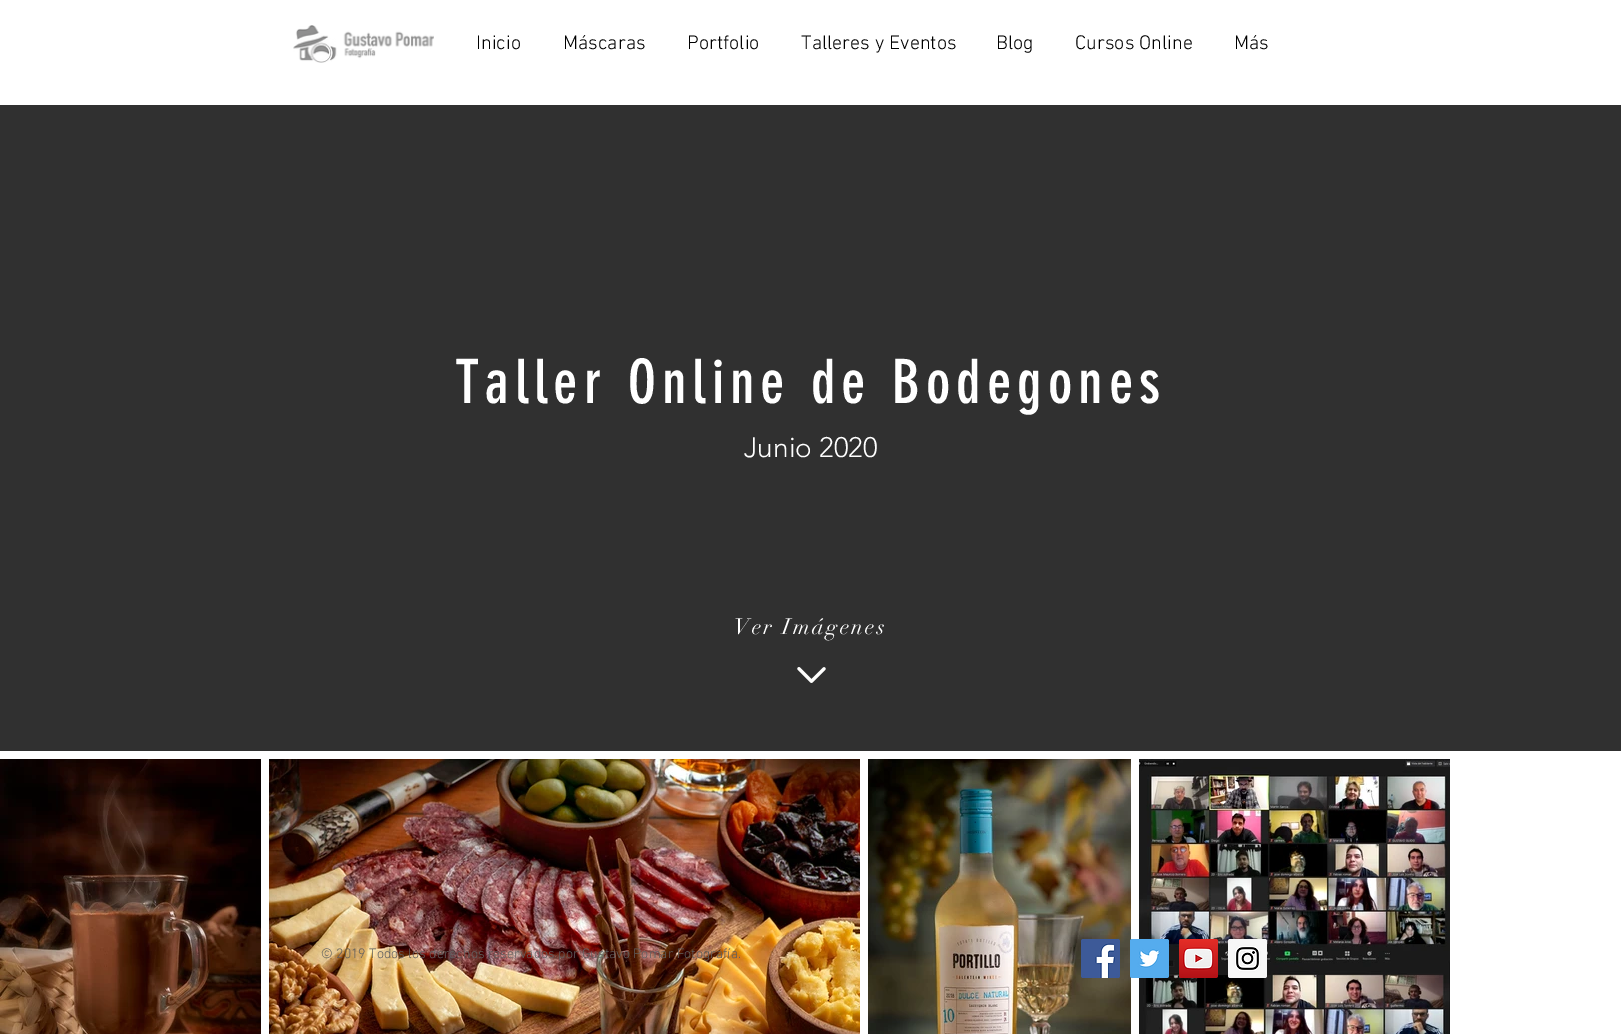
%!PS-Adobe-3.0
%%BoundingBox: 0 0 1621 1034
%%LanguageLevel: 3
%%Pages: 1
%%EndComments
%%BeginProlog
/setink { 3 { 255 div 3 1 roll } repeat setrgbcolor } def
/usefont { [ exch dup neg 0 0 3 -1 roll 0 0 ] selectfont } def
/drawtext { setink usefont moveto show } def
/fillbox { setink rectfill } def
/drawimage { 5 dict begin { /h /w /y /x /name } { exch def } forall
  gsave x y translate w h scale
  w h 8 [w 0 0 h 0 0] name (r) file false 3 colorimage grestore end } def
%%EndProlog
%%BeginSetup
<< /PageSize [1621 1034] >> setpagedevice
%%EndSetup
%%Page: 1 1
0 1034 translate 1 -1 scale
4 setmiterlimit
0 0 1621 1034 255 255 255 fillbox
(assets/img1.rgb) 293 25 141 38 drawimage
(Inicio) 476 49 /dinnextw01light-Light 20 0 0 0 drawtext
(Máscaras) 563 49 /dinnextw01light-Light 20 0 0 0 drawtext
(Portfolio) 687 49 /dinnextw01light-Light 20 0 0 0 drawtext
(Talleres y Eventos) 801 49 /dinnextw01light-Light 20 0 0 0 drawtext
(Blog) 996 49 /dinnextw01light-Light 20 0 0 0 drawtext
(Cursos Online) 1075 49 /dinnextw01light-Light 20 0 0 0 drawtext
(Más) 1234 49 /dinnextw01light-Light 20 0 0 0 drawtext
0 105 1621 646 48 48 48 fillbox
/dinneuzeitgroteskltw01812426-Regular 60 usefont
255 255 255 setink
455 403 moveto 6 0 (Taller Online de Bodegones) ashow
(Junio 2020) 744 457 /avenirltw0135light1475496-Light 28 255 255 255 drawtext
/didot-Regular 22 usefont
734 634 moveto 2.25 0 (Ver Imágenes) ashow
(assets/img2.rgb) 797 667 29 16 drawimage
(assets/img3.rgb) 0 759 261 275 drawimage
(assets/img4.rgb) 269 759 591 275 drawimage
(assets/img5.rgb) 868 759 263 275 drawimage
(assets/img6.rgb) 1139 759 311 275 drawimage
(© 2019 Todos los derechos reservados por Gustavo Pomar Fotografía.) 321 958 /dinnextw01light-Light 14 96 96 96 drawtext
(assets/img7.rgb) 1081 939 39 39 drawimage
(assets/img8.rgb) 1130 939 39 39 drawimage
(assets/img9.rgb) 1179 939 39 39 drawimage
(assets/img10.rgb) 1228 939 39 39 drawimage
showpage
%%EOF
